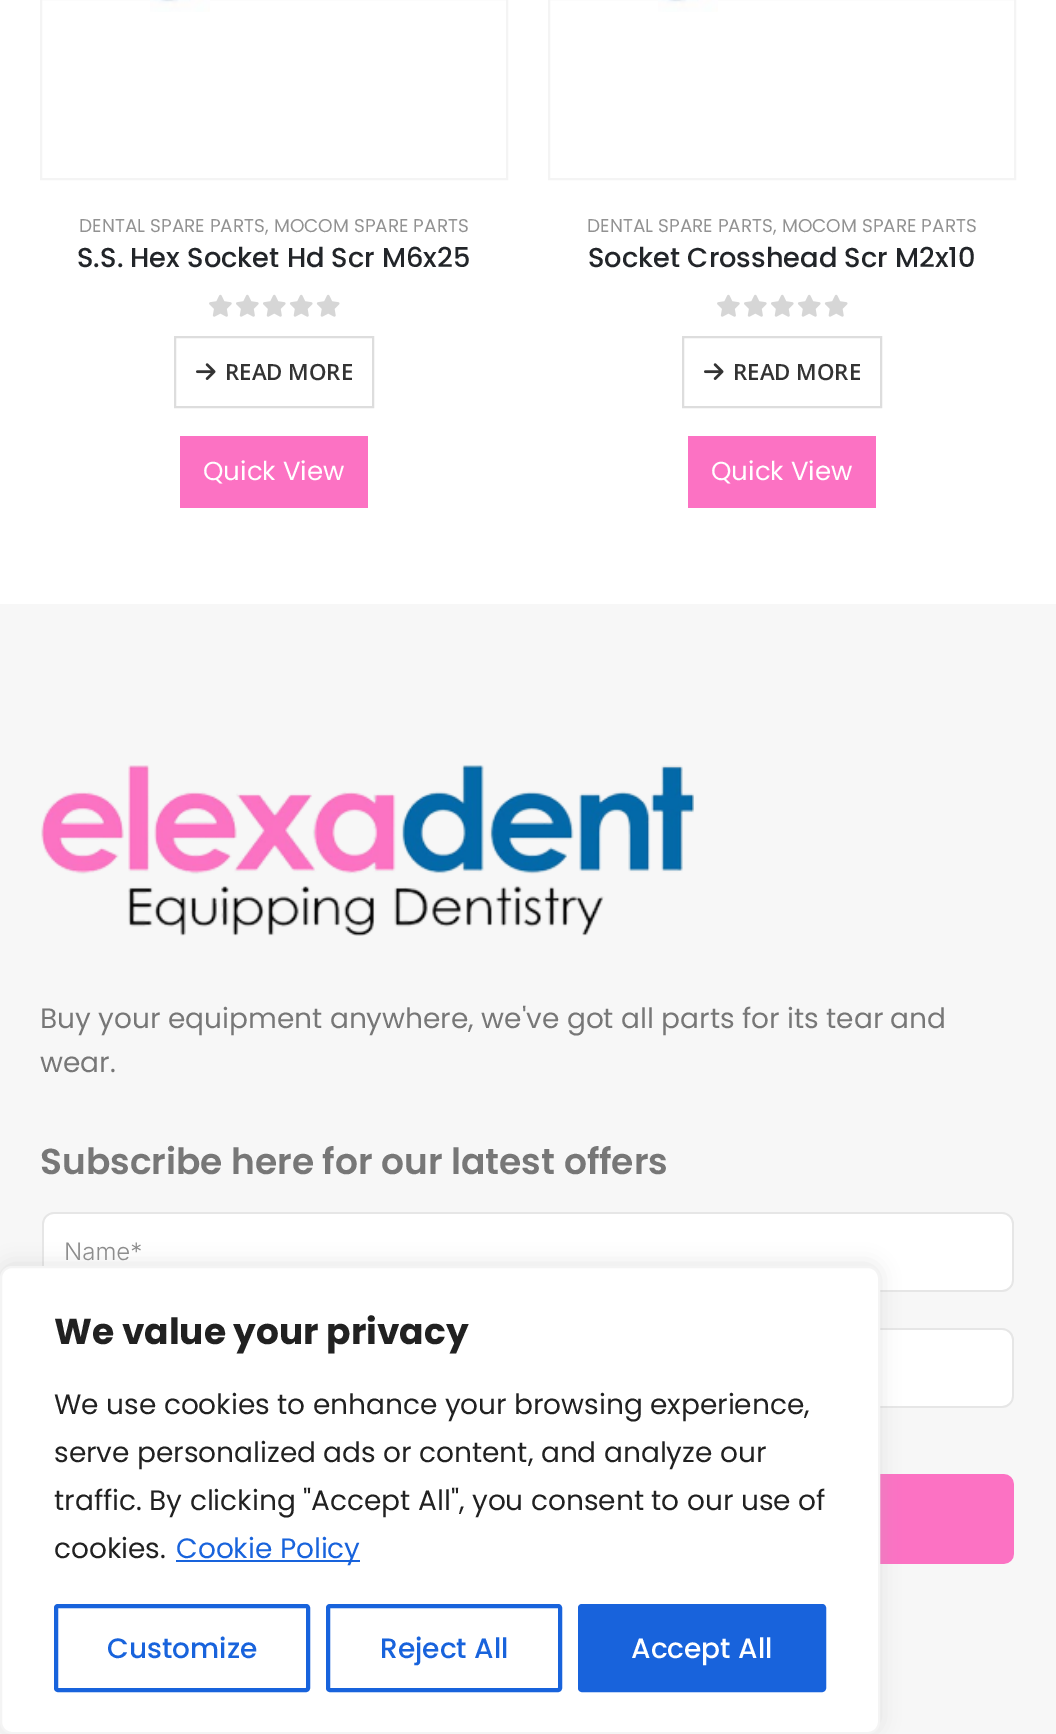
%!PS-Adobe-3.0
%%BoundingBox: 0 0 1056 1734
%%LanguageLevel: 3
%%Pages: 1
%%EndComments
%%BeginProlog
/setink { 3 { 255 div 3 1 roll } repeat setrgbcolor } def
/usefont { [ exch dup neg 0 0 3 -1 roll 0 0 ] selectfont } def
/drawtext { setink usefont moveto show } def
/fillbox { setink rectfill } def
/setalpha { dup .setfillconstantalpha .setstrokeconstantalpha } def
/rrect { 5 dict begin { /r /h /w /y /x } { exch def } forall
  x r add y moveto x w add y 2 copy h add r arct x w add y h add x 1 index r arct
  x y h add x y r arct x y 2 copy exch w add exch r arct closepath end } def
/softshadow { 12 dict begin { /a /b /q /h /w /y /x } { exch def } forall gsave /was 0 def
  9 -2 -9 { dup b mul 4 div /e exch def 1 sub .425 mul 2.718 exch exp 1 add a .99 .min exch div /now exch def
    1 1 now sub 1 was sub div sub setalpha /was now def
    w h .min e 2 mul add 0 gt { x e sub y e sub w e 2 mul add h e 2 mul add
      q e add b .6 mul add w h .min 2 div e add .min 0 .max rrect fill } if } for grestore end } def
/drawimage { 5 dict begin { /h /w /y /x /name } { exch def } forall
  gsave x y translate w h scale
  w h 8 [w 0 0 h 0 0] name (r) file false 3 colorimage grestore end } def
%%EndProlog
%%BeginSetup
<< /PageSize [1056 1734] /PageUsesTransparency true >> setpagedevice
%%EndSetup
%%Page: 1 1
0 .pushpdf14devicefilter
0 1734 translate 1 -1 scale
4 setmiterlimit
0 0 1056 1734 255 255 255 fillbox
244 244 244 setink
2 setlinewidth
41 -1 466 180 rectstroke
(assets/img1.rgb) 150 0 60 12 drawimage
(DENTAL SPARE PARTS) 79 232 /Poppins-Regular 18.5 146 146 146 drawtext
(, MOCOM SPARE PARTS) 265 232 /Poppins-Regular 18.5 146 146 146 drawtext
(S.S. Hex Socket Hd Scr M6x25) 77 267 /Poppins-Medium 27.3 34 37 41 drawtext
(assets/img2.rgb) 209 294 131 23 drawimage
221 221 221 setink
175 337 198 70 rectstroke
(assets/img3.rgb) 196 363 20 17 drawimage
(READ MORE) 225 380 /OpenSans-SemiBold 22.25 51 51 51 drawtext
180 436 188 72 252 114 195 fillbox
(Quick View) 203 480 /Poppins-Regular 26 255 255 255 drawtext
244 244 244 setink
549 -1 466 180 rectstroke
(assets/img4.rgb) 658 0 60 12 drawimage
(DENTAL SPARE PARTS) 587 232 /Poppins-Regular 18.5 146 146 146 drawtext
(, MOCOM SPARE PARTS) 773 232 /Poppins-Regular 18.5 146 146 146 drawtext
(Socket Crosshead Scr M2x10) 588 267 /Poppins-Medium 27.3 34 37 41 drawtext
(assets/img2.rgb) 717 294 131 23 drawimage
221 221 221 setink
683 337 198 70 rectstroke
(assets/img3.rgb) 704 363 20 17 drawimage
(READ MORE) 733 380 /OpenSans-SemiBold 22.25 51 51 51 drawtext
688 436 188 72 252 114 195 fillbox
(Quick View) 711 480 /Poppins-Regular 26 255 255 255 drawtext
0 604 1056 1130 247 247 247 fillbox
(assets/img5.rgb) 41 764 653 172 drawimage
(Buy your equipment anywhere, we've got all parts for its tear and) 40 1028 /Poppins-Regular 28 119 119 119 drawtext
(wear.) 40 1072 /Poppins-Regular 28 119 119 119 drawtext
(Subscribe here for our latest offers) 40 1174 /Poppins-SemiBold 36 119 119 119 drawtext
(assets/img6.rgb) 42 1212 972 352 drawimage
172 171 171 setink
0 1264 880 468 12 10 0.3 softshadow
255 255 255 setink
1 1267 878 466 11 rrect gsave fill grestore
244 244 244 setink
stroke
(We value your privacy) 54 1344 /Poppins-Bold 36 33 33 33 drawtext
(We use cookies to enhance your browsing experience,) 54 1414 /Poppins-Regular 28 33 33 33 drawtext
(serve personalized ads or content, and analyze our) 54 1462 /Poppins-Regular 28 33 33 33 drawtext
(traffic. By clicking "Accept All", you consent to our use of) 54 1510 /Poppins-Regular 28 33 33 33 drawtext
(cookies.) 54 1558 /Poppins-Regular 28 33 33 33 drawtext
176 1560 184 2 24 99 220 fillbox
(Cookie Policy) 176 1558 /Poppins-Regular 28 24 99 220 drawtext
4 setlinewidth
56 1606 252 84 2 rrect stroke
(Customize) 107 1658 /Poppins-Medium 28 24 99 220 drawtext
328 1606 232 84 2 rrect stroke
(Reject All) 380 1658 /Poppins-Medium 28 24 99 220 drawtext
580 1606 244 84 2 rrect gsave fill grestore
stroke
(Accept All) 631 1658 /Poppins-Medium 28 255 255 255 drawtext
.poppdf14devicefilter showpage
%%EOF
